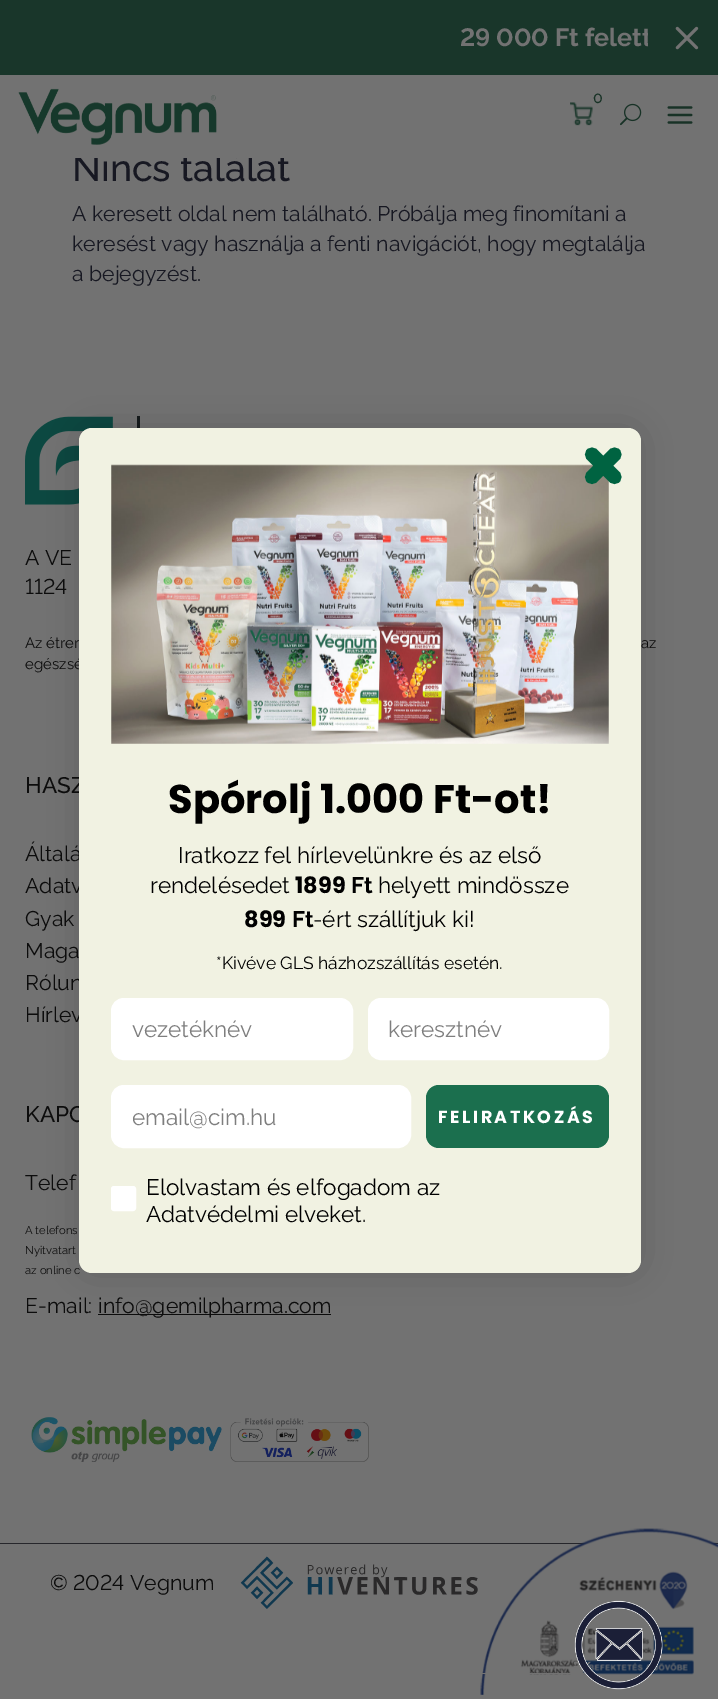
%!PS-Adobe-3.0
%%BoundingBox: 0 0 718 1699
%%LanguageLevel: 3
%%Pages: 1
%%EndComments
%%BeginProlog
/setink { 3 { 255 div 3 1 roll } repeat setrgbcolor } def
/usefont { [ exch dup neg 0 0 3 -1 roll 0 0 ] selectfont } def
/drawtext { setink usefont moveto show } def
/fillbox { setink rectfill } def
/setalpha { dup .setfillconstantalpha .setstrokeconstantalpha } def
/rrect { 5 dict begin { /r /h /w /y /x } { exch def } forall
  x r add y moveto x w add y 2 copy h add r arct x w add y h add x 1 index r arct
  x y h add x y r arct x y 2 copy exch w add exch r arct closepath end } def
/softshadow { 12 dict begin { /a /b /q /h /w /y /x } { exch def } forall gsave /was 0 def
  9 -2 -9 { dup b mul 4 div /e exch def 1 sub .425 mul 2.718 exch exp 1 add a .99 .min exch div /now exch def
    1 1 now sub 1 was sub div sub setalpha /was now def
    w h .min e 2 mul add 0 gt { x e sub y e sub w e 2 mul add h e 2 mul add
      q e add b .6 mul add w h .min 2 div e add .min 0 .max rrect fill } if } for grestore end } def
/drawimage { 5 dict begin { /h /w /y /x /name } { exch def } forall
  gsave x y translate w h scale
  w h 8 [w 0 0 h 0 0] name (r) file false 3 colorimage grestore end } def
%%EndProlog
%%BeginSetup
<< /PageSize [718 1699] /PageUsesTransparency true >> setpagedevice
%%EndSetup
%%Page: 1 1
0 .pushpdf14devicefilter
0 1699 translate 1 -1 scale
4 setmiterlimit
0 0 718 1699 114 114 114 fillbox
0 0 718 75 25 54 42 fillbox
gsave
73 24 575 29 rectclip
(29 000 Ft felett) 460 46 /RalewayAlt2-Thin 25 114 114 114 drawtext
grestore
(assets/img1.rgb) 675 26 24 24 drawimage
(Nincs találat) 72 181 /Raleway-Thin 37.5 23 24 34 drawtext
75 153 209 5 114 114 114 fillbox
(assets/img2.rgb) 18 88 199 57 drawimage
(0) 593 103 /Raleway-Thin 16 24 50 38 drawtext
(assets/img3.rgb) 570 102 23 24 drawimage
(assets/img4.rgb) 620 103 22 23 drawimage
(assets/img5.rgb) 667 106 26 18 drawimage
(A keresett oldal nem található. Próbálja meg finomítani a) 72 221 /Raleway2-Thin 21.25 23 24 34 drawtext
(keresést vagy használja a fenti navigációt, hogy megtalálja) 72 251 /Raleway2-Thin 21.25 23 24 34 drawtext
(a bejegyzést.) 72 281 /Raleway2-Thin 21.25 23 24 34 drawtext
(assets/img6.rgb) 25 416 115 89 drawimage
(A VE) 25 565 /Raleway2-Thin 21.25 12 12 12 drawtext
(1124) 25 594 /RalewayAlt-Thin 21.25 12 12 12 drawtext
(Az étren) 25 648 /Raleway2-Thin 15 12 12 12 drawtext
(az) 641 648 /Raleway2-Thin 15 12 12 12 drawtext
(egészsé) 25 669 /Raleway2-Thin 15 12 12 12 drawtext
(HASZ) 25 793 /Raleway-Thin 22.5 12 12 12 drawtext
(Általá) 25 861 /Raleway2-Thin 21.25 12 12 12 drawtext
(Adatv) 25 893 /Raleway2-Thin 21.25 12 12 12 drawtext
(Gyak) 25 926 /Raleway2-Thin 21.25 12 12 12 drawtext
(Maga) 25 958 /Raleway2-Thin 21.25 12 12 12 drawtext
(Rólun) 25 990 /Raleway2-Thin 21.25 12 12 12 drawtext
(Hírlev) 25 1022 /Raleway2-Thin 21.25 12 12 12 drawtext
(KAPC) 25 1122 /Raleway-Thin 22.5 12 12 12 drawtext
(Telef) 25 1190 /RalewayAlt-Thin 21.25 12 12 12 drawtext
(A telefons) 25 1234 /RalewayAlt-Thin 11.25 12 12 12 drawtext
(Nyitvatart) 25 1254 /Raleway2-Thin 11.25 12 12 12 drawtext
(az online c) 25 1274 /Raleway2-Thin 11.25 12 12 12 drawtext
(E-mail:) 25 1313 /Raleway2-Thin 21.25 12 12 12 drawtext
98 1314 233 1 12 12 12 fillbox
(info@gemilpharma.com) 98 1313 /Raleway2-Thin 21.25 12 12 12 drawtext
(assets/img7.rgb) 31 1417 338 45 drawimage
0 1543 718 1 38 38 43 fillbox
(© 2024 Vegnum) 50 1590 /RalewayAlt-Thin 21.25 12 12 12 drawtext
(assets/img8.rgb) 240 1556 238 53 drawimage
(assets/img9.rgb) 480 1528 238 167 drawimage
482 1673 109 1 114 114 114 fillbox
0 0 0 setink
79 428 562 845 13 19 0.15 softshadow
241 242 226 setink
79 428 562 845 13 rrect fill
(assets/img10.rgb) 111 464 498 280 drawimage
0 99 65 setink
14.1 setlinewidth
1 setlinecap
1 setlinejoin
592 454.5 moveto 614.5 477 lineto 592 477 moveto 614.5 454.5 lineto closepath stroke
(Spórolj 1.000 Ft-ot!) 168 813 /Poppins-Bold 40 0 0 0 drawtext
(Iratkozz fel hírlevelünkre és az első) 178 863 /Raleway2-Thin 22.5 0 0 0 drawtext
(rendelésedet) 150 893 /Raleway2-Thin 22.5 0 0 0 drawtext
(1899) 295 893 /Poppins-Bold 22.5 0 0 0 drawtext
(Ft) 351 893 /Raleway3-Thin 22.5 0 0 0 drawtext
(helyett mindössze) 378 893 /Raleway2-Thin 22.5 0 0 0 drawtext
(899) 244 927 /Poppins-Bold 22.5 0 0 0 drawtext
(Ft) 292 927 /Raleway3-Thin 22.5 0 0 0 drawtext
(-ért szállítjuk ki!) 313 927 /Raleway2-Thin 22.5 0 0 0 drawtext
(*Kivéve GLS házhozszállítás esetén.) 216 969 /Raleway2-Thin 17.5 0 0 0 drawtext
255 255 255 setink
111.5 998.5 241 61 12.5 rrect gsave fill grestore
1 setlinewidth
0 setlinecap
0 setlinejoin
stroke
(vezetéknév) 132 1037 /Raleway2-Thin 22.5 126 126 126 drawtext
255 255 255 setink
368.5 998.5 240 61 12.5 rrect gsave fill grestore
stroke
(keresztnév) 388 1037 /Raleway2-Thin 22.5 126 126 126 drawtext
255 255 255 setink
111.5 1085.5 299 62 12.5 rrect gsave fill grestore
stroke
gsave
133 1104 277 26 rectclip
(email@cim.hu) 132 1125 /Raleway2-Thin 22.5 126 126 126 drawtext
grestore
27 111 78 setink
426 1085 183 63 13 rrect fill
/Poppins-Bold 17.5 usefont
255 255 255 setink
438 1123 moveto 2.5 0 (FELIRATKOZÁS) ashow
111.5 1186.5 24 24 2.5 rrect gsave fill grestore
stroke
(Elolvastam és elfogadom az) 146 1195 /Raleway2-Thin 22.5 0 0 0 drawtext
(Adatvédelmi elveket.) 146 1222 /Raleway2-Thin 22.5 0 0 0 drawtext
(assets/img11.rgb) 574 1600 89 90 drawimage
.poppdf14devicefilter showpage
%%EOF
